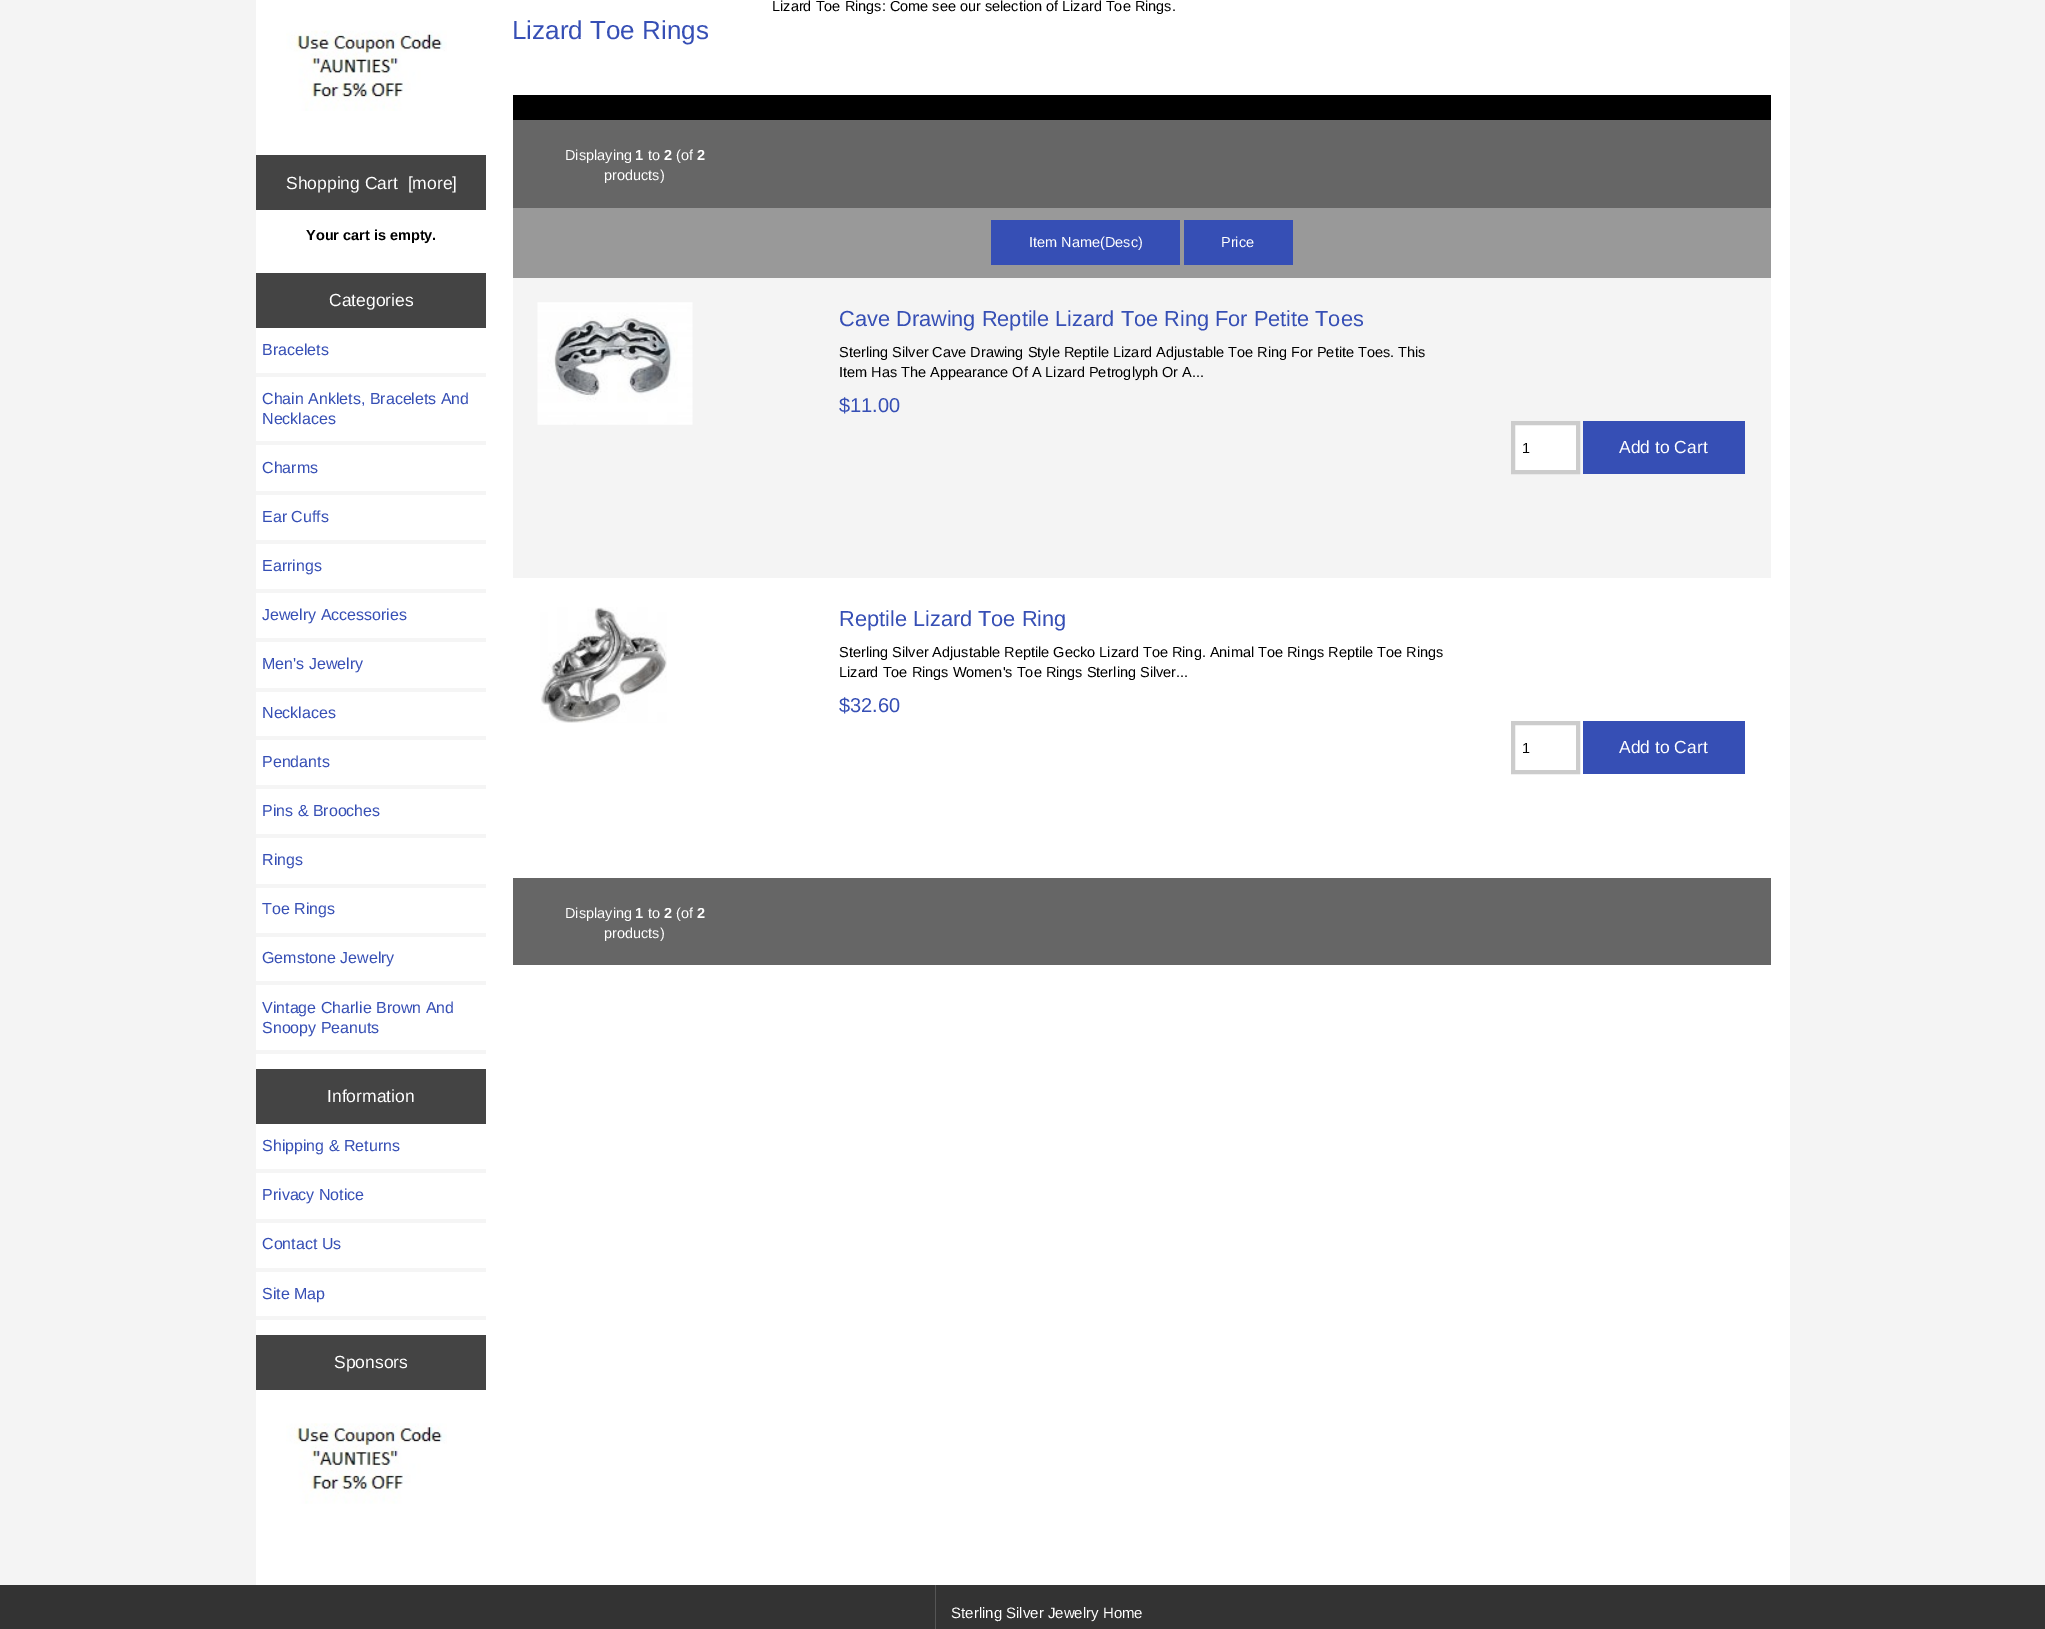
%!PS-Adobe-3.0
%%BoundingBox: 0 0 2045 1629
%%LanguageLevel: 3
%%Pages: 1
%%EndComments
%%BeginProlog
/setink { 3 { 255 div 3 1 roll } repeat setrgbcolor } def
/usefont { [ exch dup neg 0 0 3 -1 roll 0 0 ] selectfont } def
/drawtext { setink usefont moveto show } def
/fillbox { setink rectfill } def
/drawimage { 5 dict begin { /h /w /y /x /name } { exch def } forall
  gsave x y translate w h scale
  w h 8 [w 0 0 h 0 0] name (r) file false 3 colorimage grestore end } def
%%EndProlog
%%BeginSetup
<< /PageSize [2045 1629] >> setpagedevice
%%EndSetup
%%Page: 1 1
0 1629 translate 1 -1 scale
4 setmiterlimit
0 0 2045 1629 244 244 244 fillbox
256 0 1534 1585 255 255 255 fillbox
(assets/img1.rgb) 286 30 161 81 drawimage
256 155 230 55 68 68 68 fillbox
(Shopping Cart  [more]) 286 189 /LiberationSans-Regular 17.5 255 255 255 drawtext
(Your cart is empty.) 306 240 /LiberationSans-Bold 14.5 0 0 0 drawtext
256 273 230 55 68 68 68 fillbox
(Categories) 329 306 /LiberationSans-Regular 17.5 255 255 255 drawtext
256 373 230 4 245 245 245 fillbox
(Bracelets) 262 355 /LiberationSans-Regular 16 54 79 181 drawtext
256 441 230 4 245 245 245 fillbox
(Chain Anklets, Bracelets And) 262 404 /LiberationSans-Regular 16 54 79 181 drawtext
(Necklaces) 262 424 /LiberationSans-Regular 16 54 79 181 drawtext
256 491 230 4 245 245 245 fillbox
(Charms) 262 473 /LiberationSans-Regular 16 54 79 181 drawtext
256 540 230 4 245 245 245 fillbox
(Ear Cuffs) 262 522 /LiberationSans-Regular 16 54 79 181 drawtext
256 589 230 4 245 245 245 fillbox
(Earrings) 262 571 /LiberationSans-Regular 16 54 79 181 drawtext
256 638 230 4 245 245 245 fillbox
(Jewelry Accessories) 262 620 /LiberationSans-Regular 16 54 79 181 drawtext
256 688 230 4 245 245 245 fillbox
(Men's Jewelry) 262 669 /LiberationSans-Regular 16 54 79 181 drawtext
256 736 230 4 245 245 245 fillbox
(Necklaces) 262 718 /LiberationSans-Regular 16 54 79 181 drawtext
256 785 230 4 245 245 245 fillbox
(Pendants) 262 767 /LiberationSans-Regular 16 54 79 181 drawtext
256 834 230 4 245 245 245 fillbox
(Pins & Brooches) 262 816 /LiberationSans-Regular 16 54 79 181 drawtext
256 884 230 4 245 245 245 fillbox
(Rings) 262 865 /LiberationSans-Regular 16 54 79 181 drawtext
256 933 230 4 245 245 245 fillbox
(Toe Rings) 262 914 /LiberationSans-Regular 16 54 79 181 drawtext
256 981 230 4 245 245 245 fillbox
(Gemstone Jewelry) 262 963 /LiberationSans-Regular 16 54 79 181 drawtext
256 1050 230 4 245 245 245 fillbox
(Vintage Charlie Brown And) 262 1013 /LiberationSans-Regular 16 54 79 181 drawtext
(Snoopy Peanuts) 262 1033 /LiberationSans-Regular 16 54 79 181 drawtext
256 1069 230 55 68 68 68 fillbox
(Information) 327 1102 /LiberationSans-Regular 17.5 255 255 255 drawtext
256 1169 230 4 245 245 245 fillbox
(Shipping & Returns) 262 1151 /LiberationSans-Regular 16 54 79 181 drawtext
256 1219 230 4 245 245 245 fillbox
(Privacy Notice) 262 1200 /LiberationSans-Regular 16 54 79 181 drawtext
256 1268 230 4 245 245 245 fillbox
(Contact Us) 262 1249 /LiberationSans-Regular 16 54 79 181 drawtext
256 1316 230 4 245 245 245 fillbox
(Site Map) 262 1299 /LiberationSans-Regular 16 54 79 181 drawtext
256 1335 230 55 68 68 68 fillbox
(Sponsors) 334 1368 /LiberationSans-Regular 17.5 255 255 255 drawtext
(assets/img2.rgb) 286 1423 161 81 drawimage
(Lizard Toe Rings: Come see our selection of Lizard Toe Rings.) 772 11 /LiberationSans-Regular 14.5 0 0 0 drawtext
(Lizard Toe Rings) 512 39 /LiberationSans-Regular 26 54 79 181 drawtext
513 95 1258 25 0 0 0 fillbox
513 120 1258 88 102 102 102 fillbox
(Displaying) 565 160 /LiberationSans-Regular 14.5 255 255 255 drawtext
(1) 635 160 /LiberationSans-Bold 14.5 255 255 255 drawtext
(to) 648 160 /LiberationSans-Regular 14.5 255 255 255 drawtext
(2) 664 160 /LiberationSans-Bold 14.5 255 255 255 drawtext
(\(of) 676 160 /LiberationSans-Regular 14.5 255 255 255 drawtext
(2) 697 160 /LiberationSans-Bold 14.5 255 255 255 drawtext
(products\)) 604 180 /LiberationSans-Regular 14.5 255 255 255 drawtext
513 208 1258 70 153 153 153 fillbox
991 220 189 45 54 79 181 fillbox
(Item Name\(Desc\)) 1029 247 /LiberationSans-Regular 14.5 255 255 255 drawtext
1184 220 109 45 54 79 181 fillbox
(Price) 1221 247 /LiberationSans-Regular 14.5 255 255 255 drawtext
513 278 1258 300 244 244 244 fillbox
(assets/img3.rgb) 537 302 156 123 drawimage
(Cave Drawing Reptile Lizard Toe Ring For Petite Toes) 839 326 /LiberationSans-Regular 21.75 54 79 181 drawtext
(Sterling Silver Cave Drawing Style Reptile Lizard Adjustable Toe Ring For Petite Toes. This) 839 357 /LiberationSans-Regular 14.5 0 0 0 drawtext
(Item Has The Appearance Of A Lizard Petroglyph Or A...) 839 377 /LiberationSans-Regular 14.5 0 0 0 drawtext
($11.00) 839 412 /LiberationSans-Regular 20 54 79 181 drawtext
255 255 255 setink
1513 423 moveto 1578 423 lineto 1578 472 lineto 1513 472 lineto closepath gsave fill grestore
204 204 204 setink
4 setlinewidth
stroke
(1) 1522 453 /LiberationSans-Regular 14.5 0 0 0 drawtext
1583 421 162 53 54 79 181 fillbox
(Add to Cart) 1619 453 /LiberationSans-Regular 17.5 255 255 255 drawtext
(assets/img4.rgb) 540 607 127 116 drawimage
(Reptile Lizard Toe Ring) 839 626 /LiberationSans-Regular 21.75 54 79 181 drawtext
(Sterling Silver Adjustable Reptile Gecko Lizard Toe Ring. Animal Toe Rings Reptile Toe Rings) 839 657 /LiberationSans-Regular 14.5 0 0 0 drawtext
(Lizard Toe Rings Women's Toe Rings Sterling Silver...) 839 677 /LiberationSans-Regular 14.5 0 0 0 drawtext
($32.60) 839 712 /LiberationSans-Regular 20 54 79 181 drawtext
204 204 204 setink
1513 723 65 49 rectstroke
(1) 1522 753 /LiberationSans-Regular 14.5 0 0 0 drawtext
1583 721 162 53 54 79 181 fillbox
(Add to Cart) 1619 753 /LiberationSans-Regular 17.5 255 255 255 drawtext
513 878 1258 87 102 102 102 fillbox
(Displaying) 565 918 /LiberationSans-Regular 14.5 255 255 255 drawtext
(1) 635 918 /LiberationSans-Bold 14.5 255 255 255 drawtext
(to) 648 918 /LiberationSans-Regular 14.5 255 255 255 drawtext
(2) 664 918 /LiberationSans-Bold 14.5 255 255 255 drawtext
(\(of) 676 918 /LiberationSans-Regular 14.5 255 255 255 drawtext
(2) 697 918 /LiberationSans-Bold 14.5 255 255 255 drawtext
(products\)) 604 938 /LiberationSans-Regular 14.5 255 255 255 drawtext
0 1585 2045 44 51 51 51 fillbox
935 1585 1 44 85 85 85 fillbox
(Sterling Silver Jewelry Home) 951 1618 /LiberationSans-Regular 15 255 255 255 drawtext
showpage
%%EOF
